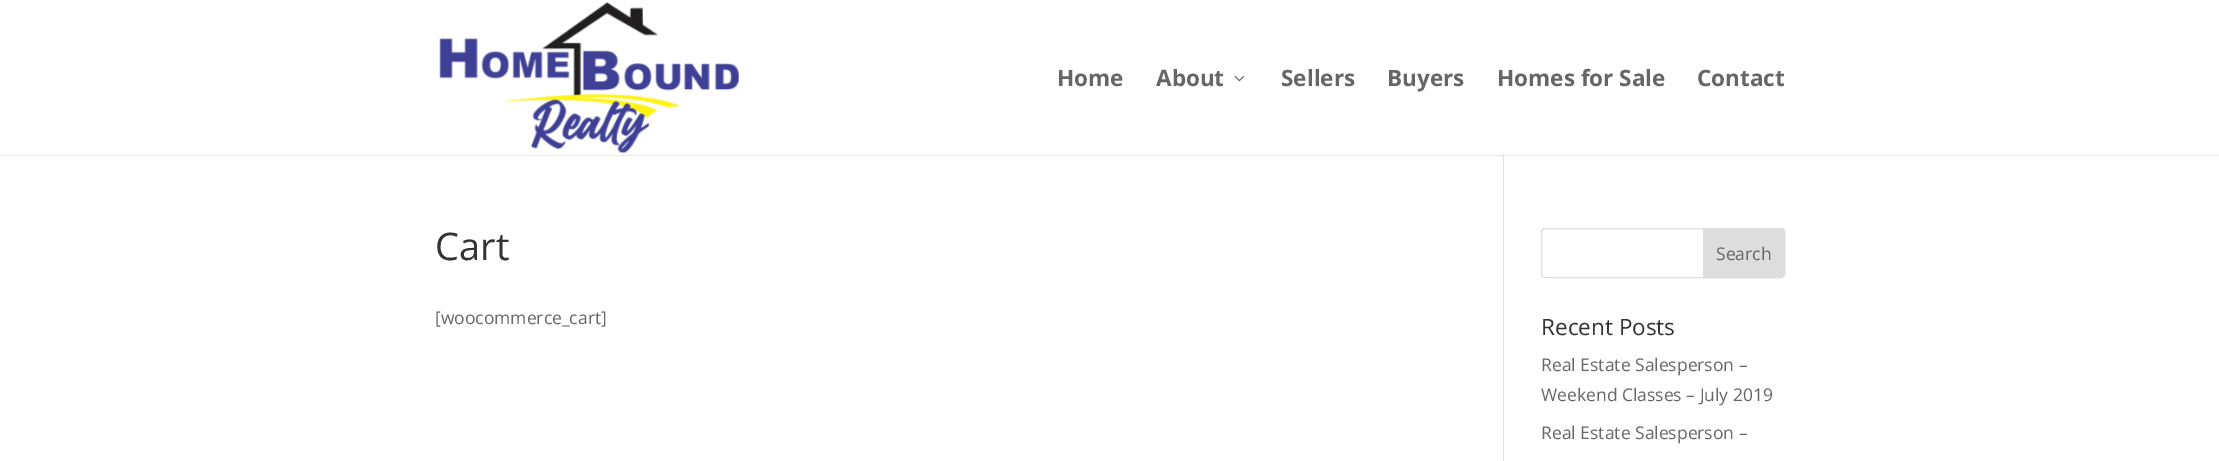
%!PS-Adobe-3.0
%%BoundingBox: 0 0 2219 461
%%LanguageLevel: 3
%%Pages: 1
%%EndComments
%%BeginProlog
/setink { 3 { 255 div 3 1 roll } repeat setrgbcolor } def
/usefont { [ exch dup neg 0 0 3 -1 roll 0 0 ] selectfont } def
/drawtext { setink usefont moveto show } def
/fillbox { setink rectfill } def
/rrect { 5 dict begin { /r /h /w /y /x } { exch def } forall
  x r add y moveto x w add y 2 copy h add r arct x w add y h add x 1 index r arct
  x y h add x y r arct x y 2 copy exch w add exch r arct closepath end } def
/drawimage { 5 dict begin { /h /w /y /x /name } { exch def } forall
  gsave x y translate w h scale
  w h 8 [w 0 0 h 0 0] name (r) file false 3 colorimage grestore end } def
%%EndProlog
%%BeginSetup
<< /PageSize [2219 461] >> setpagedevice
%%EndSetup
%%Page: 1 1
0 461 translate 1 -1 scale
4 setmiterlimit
0 0 2219 461 255 255 255 fillbox
0 155 2219 1 230 230 230 fillbox
(assets/img1.rgb) 439 2 300 152 drawimage
(Home) 1057 86 /OpenSans-Bold 22.5 102 102 102 drawtext
(About) 1156 86 /OpenSans-Bold 22.5 102 102 102 drawtext
(assets/img2.rgb) 1234 76 10 6 drawimage
(Sellers) 1281 86 /OpenSans-Bold 22.5 102 102 102 drawtext
(Buyers) 1387 86 /OpenSans-Bold 22.5 102 102 102 drawtext
(Homes for Sale) 1497 86 /OpenSans-Bold 22.5 102 102 102 drawtext
(Contact) 1697 86 /OpenSans-Bold 22.5 102 102 102 drawtext
1503 155 1 306 226 226 226 fillbox
1503 155 1 1 203 203 203 fillbox
(Cart) 435 260 /OpenSans-Regular 38 51 51 51 drawtext
([woocommerce_cart]) 435 324 /OpenSans-Regular 17.5 102 102 102 drawtext
221 221 221 setink
1541.5 228.5 243 49 3.5 rrect stroke
1703.5 228.5 moveto 1781 228.5 lineto 1783 228.5 1784.5 230 1784.5 232 curveto 1784.5 274 lineto 1784.5 276 1783 277.5 1781 277.5 curveto 1703.5 277.5 lineto closepath gsave fill grestore
stroke
(Search) 1716 260 /OpenSans-Regular 17.5 102 102 102 drawtext
(Recent Posts) 1541 335 /OpenSans-Regular 22.5 51 51 51 drawtext
(Real Estate Salesperson –) 1541 371 /OpenSans-Regular 17.5 102 102 102 drawtext
(Weekend Classes – July 2019) 1541 401 /OpenSans-Regular 17.5 102 102 102 drawtext
(Real Estate Salesperson –) 1541 439 /OpenSans-Regular 17.5 102 102 102 drawtext
showpage
%%EOF
